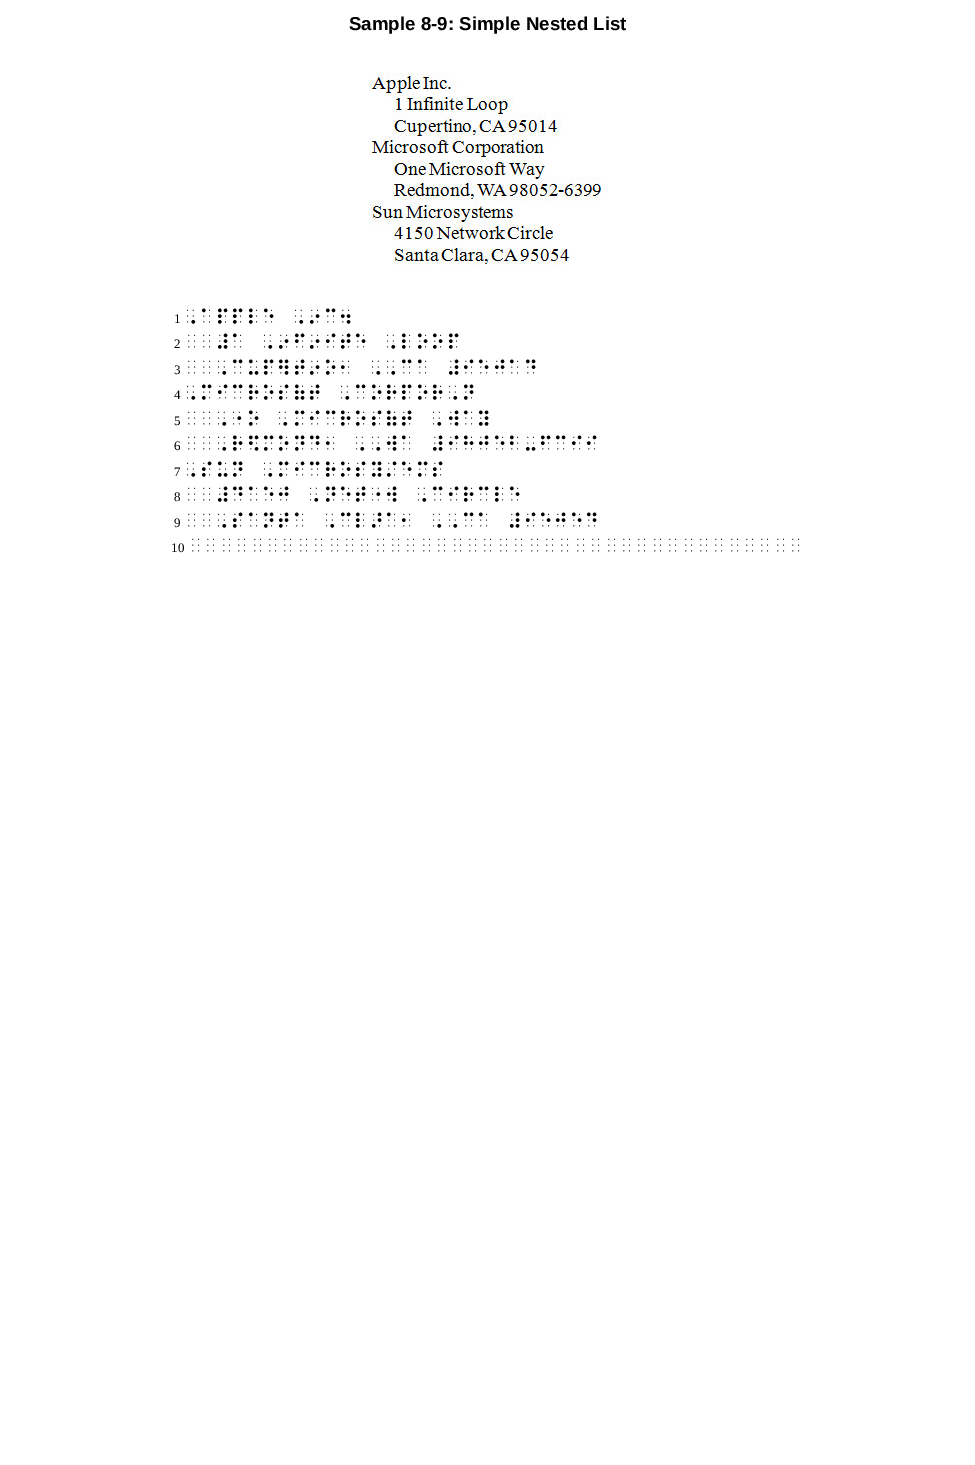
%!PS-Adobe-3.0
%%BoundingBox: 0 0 975 1465
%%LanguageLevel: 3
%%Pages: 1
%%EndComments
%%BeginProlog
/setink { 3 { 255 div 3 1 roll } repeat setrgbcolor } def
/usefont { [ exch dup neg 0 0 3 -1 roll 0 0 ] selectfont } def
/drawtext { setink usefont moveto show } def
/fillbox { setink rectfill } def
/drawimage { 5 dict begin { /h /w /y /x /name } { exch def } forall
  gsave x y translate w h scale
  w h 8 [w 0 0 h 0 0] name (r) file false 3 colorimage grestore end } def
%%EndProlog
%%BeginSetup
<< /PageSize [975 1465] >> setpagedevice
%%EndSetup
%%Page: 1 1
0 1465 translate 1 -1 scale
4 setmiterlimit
0 0 975 1465 255 255 255 fillbox
(Sample 8-9: Simple Nested List) 349 30 /LiberationSans-Bold 18.7 0 0 0 drawtext
(assets/img1.rgb) 369 73 232 192 drawimage
(1) 174 323 /LiberationSerif-Regular 13 0 0 0 drawtext
(,apple ,9c4) 184 323 /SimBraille-Regular 21.3 0 0 0 drawtext
(2) 174 348 /LiberationSerif-Regular 13 0 0 0 drawtext
(⠀⠀#a ,9f9ite ,loop) 184 348 /SimBraille-Regular 21.3 0 0 0 drawtext
(3) 174 374 /LiberationSerif-Regular 13 0 0 0 drawtext
(⠀⠀,cup]t9o1 ,,ca #iejad) 184 374 /SimBraille-Regular 21.3 0 0 0 drawtext
(4) 174 399 /LiberationSerif-Regular 13 0 0 0 drawtext
(,micros\(t ,corpor,n) 184 399 /SimBraille-Regular 21.3 0 0 0 drawtext
(5) 174 425 /LiberationSerif-Regular 13 0 0 0 drawtext
(⠀⠀,"o ,micros\(t ,way) 184 425 /SimBraille-Regular 21.3 0 0 0 drawtext
(6) 174 450 /LiberationSerif-Regular 13 0 0 0 drawtext
(⠀⠀,r$mond1 ,,wa #ihjeb-fcii) 184 450 /SimBraille-Regular 21.3 0 0 0 drawtext
(7) 174 476 /LiberationSerif-Regular 13 0 0 0 drawtext
(,sun ,microsy/ems) 184 476 /SimBraille-Regular 21.3 0 0 0 drawtext
(8) 174 501 /LiberationSerif-Regular 13 0 0 0 drawtext
(⠀⠀#daej ,net"w ,circle) 184 501 /SimBraille-Regular 21.3 0 0 0 drawtext
(9) 174 527 /LiberationSerif-Regular 13 0 0 0 drawtext
(⠀⠀,santa ,cl>a1 ,,ca #iejed) 184 527 /SimBraille-Regular 21.3 0 0 0 drawtext
(10) 171 552 /LiberationSerif-Regular 13 0 0 0 drawtext
(⠀⠀⠀⠀⠀⠀⠀⠀⠀⠀⠀⠀⠀⠀⠀⠀⠀⠀⠀⠀⠀⠀⠀⠀⠀⠀⠀⠀⠀⠀⠀⠀⠀⠀⠀⠀⠀⠀⠀⠀) 188 552 /SimBraille-Regular 21.3 0 0 0 drawtext
showpage
%%EOF
